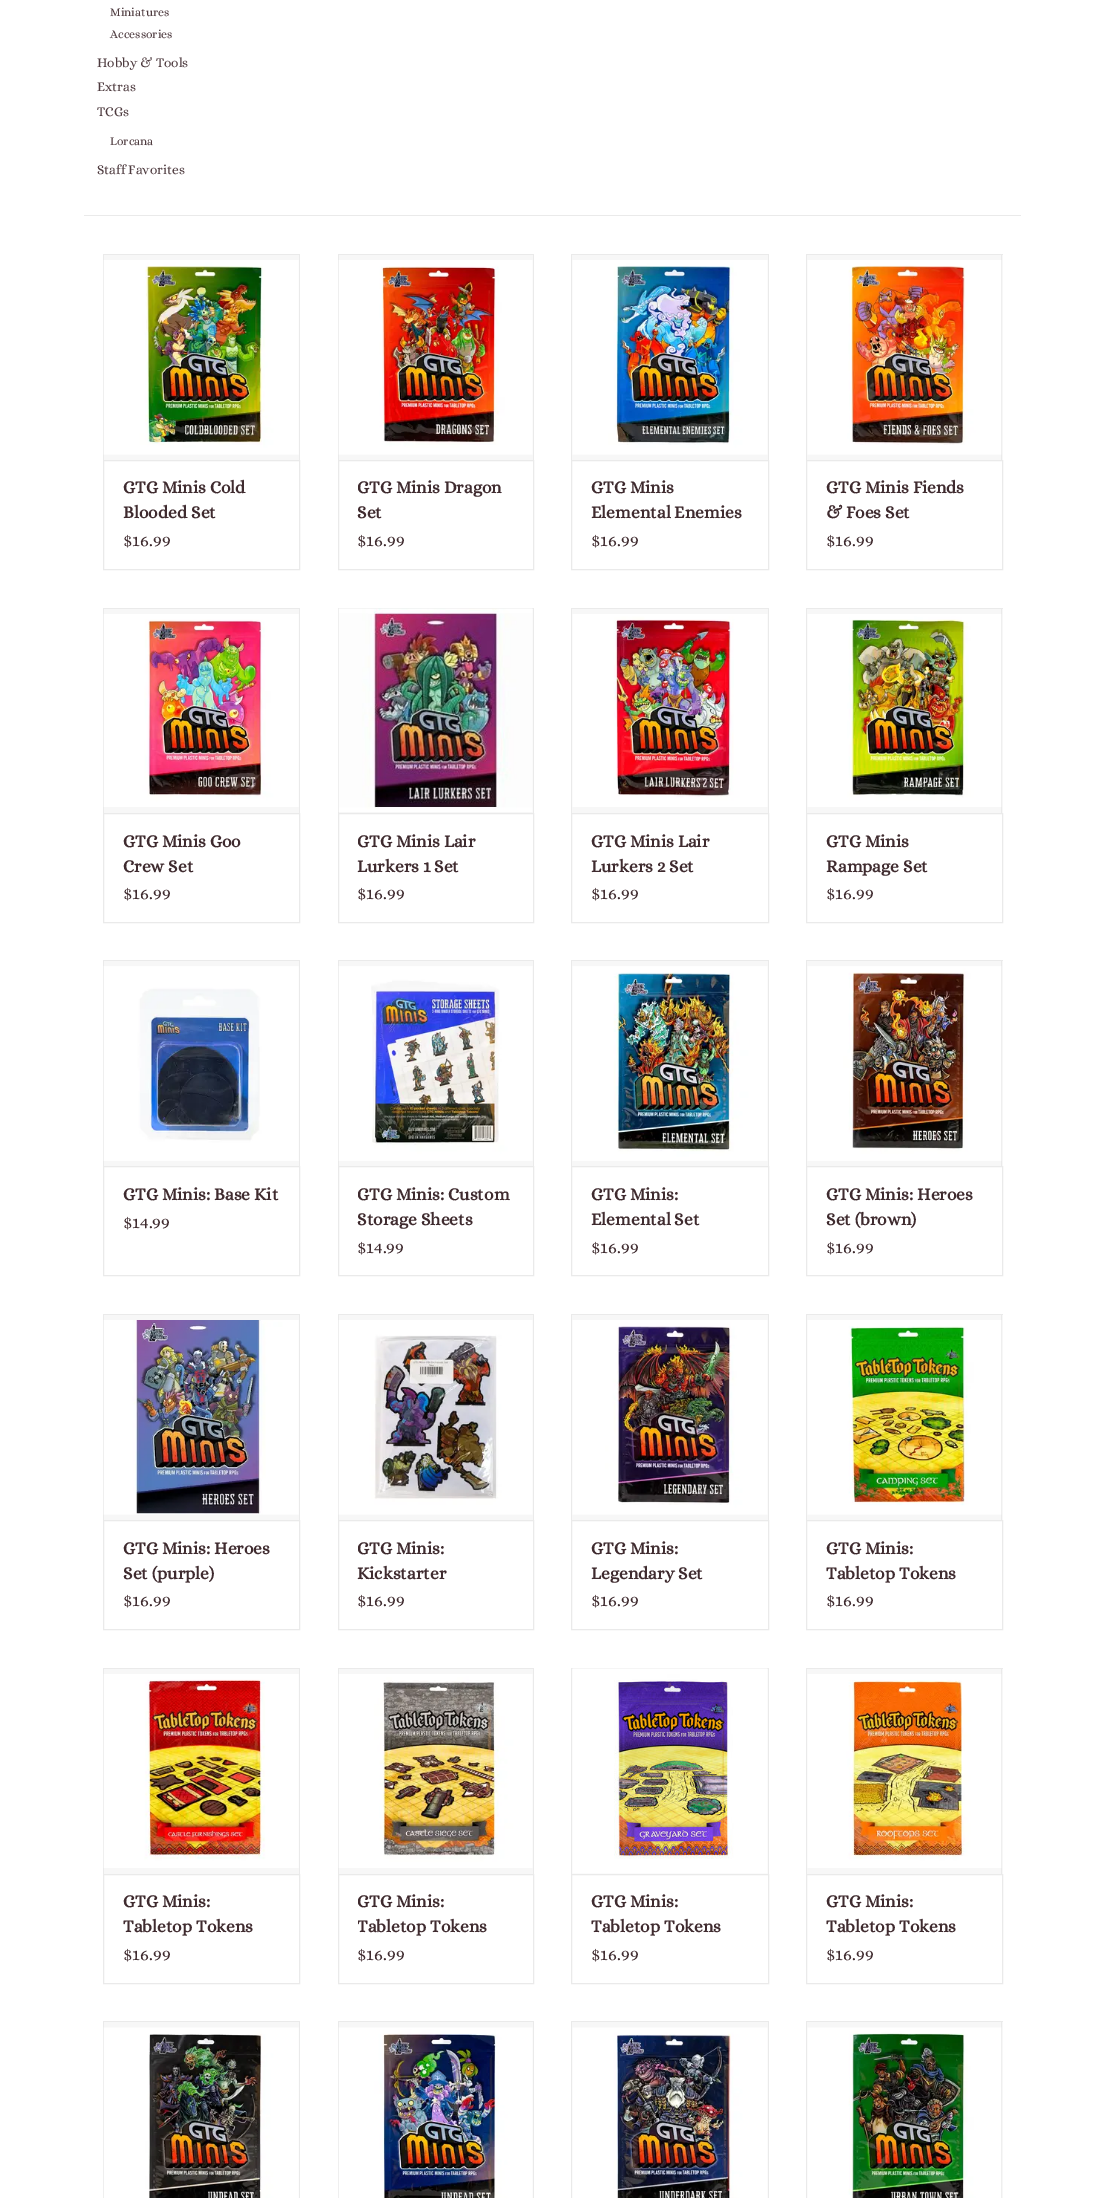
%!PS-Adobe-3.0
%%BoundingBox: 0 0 1105 2198
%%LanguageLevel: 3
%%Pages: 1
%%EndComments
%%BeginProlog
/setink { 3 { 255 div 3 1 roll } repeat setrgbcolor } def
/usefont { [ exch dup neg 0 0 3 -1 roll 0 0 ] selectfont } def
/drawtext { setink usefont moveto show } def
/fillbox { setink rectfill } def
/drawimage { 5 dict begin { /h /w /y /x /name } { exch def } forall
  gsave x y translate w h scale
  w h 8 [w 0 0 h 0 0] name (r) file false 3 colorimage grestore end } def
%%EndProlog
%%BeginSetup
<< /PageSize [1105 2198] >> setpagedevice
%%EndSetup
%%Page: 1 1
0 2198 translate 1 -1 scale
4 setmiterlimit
0 0 1105 2198 255 255 255 fillbox
84 215 937 1 234 234 234 fillbox
(Miniatures) 110 16 /Alice-Regular 12 78 59 63 drawtext
(Accessories) 110 38 /Alice-Regular 12 78 59 63 drawtext
(Hobby & Tools) 97 67 /Alice-Regular 13.5 78 59 63 drawtext
(Extras) 97 91 /Alice-Regular 13.5 78 59 63 drawtext
(TCGs) 97 116 /Alice-Regular 13.5 78 59 63 drawtext
(Lorcana) 110 145 /Alice-Regular 12 78 59 63 drawtext
(Staff Favorites) 97 174 /Alice-Regular 13.5 78 59 63 drawtext
104 255 195 205 247 247 247 fillbox
103 254 197 1 234 234 234 fillbox
299 254 1 206 234 234 234 fillbox
103 254 1 206 234 234 234 fillbox
(assets/img1.rgb) 103 260 196 195 drawimage
103.5 460.5 196 109 rectstroke
(GTG Minis Cold) 123 493 /Alice-Bold 17.5 63 43 47 drawtext
(Blooded Set) 123 518 /Alice-Bold 17.5 63 43 47 drawtext
($16.99) 123 546 /Alice-Regular 17.5 63 43 47 drawtext
339 255 194 205 247 247 247 fillbox
338 254 196 1 234 234 234 fillbox
533 254 1 206 234 234 234 fillbox
338 254 1 206 234 234 234 fillbox
(assets/img2.rgb) 338 260 195 195 drawimage
338.5 460.5 195 109 rectstroke
gsave
358 475 156 50 rectclip
(GTG Minis Dragon) 357 493 /Alice-Bold 17.5 63 43 47 drawtext
grestore
(Set) 357 518 /Alice-Bold 17.5 63 43 47 drawtext
($16.99) 357 546 /Alice-Regular 17.5 63 43 47 drawtext
572 255 196 205 247 247 247 fillbox
571 254 198 1 234 234 234 fillbox
768 254 1 206 234 234 234 fillbox
571 254 1 206 234 234 234 fillbox
(assets/img3.rgb) 572 260 196 195 drawimage
571.5 460.5 197 109 rectstroke
(GTG Minis) 591 493 /Alice-Bold 17.5 63 43 47 drawtext
(Elemental Enemies) 591 518 /Alice-Bold 17.5 63 43 47 drawtext
($16.99) 591 546 /Alice-Regular 17.5 63 43 47 drawtext
807 255 196 205 247 247 247 fillbox
806 254 197 1 234 234 234 fillbox
1001 254 1 206 234 234 234 fillbox
806 254 1 206 234 234 234 fillbox
(assets/img4.rgb) 807 260 195 195 drawimage
806.5 460.5 196 109 rectstroke
(GTG Minis Fiends) 826 493 /Alice-Bold 17.5 63 43 47 drawtext
(& Foes Set) 826 518 /Alice-Bold 17.5 63 43 47 drawtext
($16.99) 826 546 /Alice-Regular 17.5 63 43 47 drawtext
104 609 195 204 247 247 247 fillbox
103 608 197 1 234 234 234 fillbox
299 608 1 205 234 234 234 fillbox
103 608 1 205 234 234 234 fillbox
(assets/img5.rgb) 103 614 196 193 drawimage
103.5 813.5 196 109 rectstroke
(GTG Minis Goo) 123 847 /Alice-Bold 17.5 63 43 47 drawtext
(Crew Set) 123 872 /Alice-Bold 17.5 63 43 47 drawtext
($16.99) 123 899 /Alice-Regular 17.5 63 43 47 drawtext
339 609 194 204 247 247 247 fillbox
338 608 196 1 234 234 234 fillbox
533 608 1 205 234 234 234 fillbox
338 608 1 205 234 234 234 fillbox
(assets/img6.rgb) 338 608 195 204 drawimage
338.5 813.5 195 109 rectstroke
gsave
358 828 156 50 rectclip
(GTG Minis Lair) 357 847 /Alice-Bold 17.5 63 43 47 drawtext
grestore
(Lurkers 1 Set) 357 872 /Alice-Bold 17.5 63 43 47 drawtext
($16.99) 357 899 /Alice-Regular 17.5 63 43 47 drawtext
572 609 196 204 247 247 247 fillbox
571 608 198 1 234 234 234 fillbox
768 608 1 205 234 234 234 fillbox
571 608 1 205 234 234 234 fillbox
(assets/img7.rgb) 572 614 196 193 drawimage
571.5 813.5 197 109 rectstroke
(GTG Minis Lair) 591 847 /Alice-Bold 17.5 63 43 47 drawtext
(Lurkers 2 Set) 591 872 /Alice-Bold 17.5 63 43 47 drawtext
($16.99) 591 899 /Alice-Regular 17.5 63 43 47 drawtext
807 609 196 204 247 247 247 fillbox
806 608 197 1 234 234 234 fillbox
1001 608 1 205 234 234 234 fillbox
806 608 1 205 234 234 234 fillbox
(assets/img8.rgb) 807 614 195 193 drawimage
806.5 813.5 196 109 rectstroke
(GTG Minis) 826 847 /Alice-Bold 17.5 63 43 47 drawtext
(Rampage Set) 826 872 /Alice-Bold 17.5 63 43 47 drawtext
($16.99) 826 899 /Alice-Regular 17.5 63 43 47 drawtext
104 961 195 205 247 247 247 fillbox
103 960 197 1 234 234 234 fillbox
299 960 1 206 234 234 234 fillbox
103 960 1 206 234 234 234 fillbox
(assets/img9.rgb) 103 966 196 195 drawimage
103.5 1166.5 196 109 rectstroke
(GTG Minis: Base Kit) 123 1200 /Alice-Bold 17.5 63 43 47 drawtext
($14.99) 123 1228 /Alice-Regular 17.5 63 43 47 drawtext
339 961 194 205 247 247 247 fillbox
338 960 196 1 234 234 234 fillbox
533 960 1 206 234 234 234 fillbox
338 960 1 206 234 234 234 fillbox
(assets/img10.rgb) 338 966 195 195 drawimage
338.5 1166.5 195 109 rectstroke
gsave
358 1181 156 50 rectclip
(GTG Minis: Custom) 357 1200 /Alice-Bold 17.5 63 43 47 drawtext
grestore
(Storage Sheets) 357 1225 /Alice-Bold 17.5 63 43 47 drawtext
($14.99) 357 1253 /Alice-Regular 17.5 63 43 47 drawtext
572 961 196 205 247 247 247 fillbox
571 960 198 1 234 234 234 fillbox
768 960 1 206 234 234 234 fillbox
571 960 1 206 234 234 234 fillbox
(assets/img11.rgb) 572 966 196 195 drawimage
571.5 1166.5 197 109 rectstroke
(GTG Minis:) 591 1200 /Alice-Bold 17.5 63 43 47 drawtext
(Elemental Set) 591 1225 /Alice-Bold 17.5 63 43 47 drawtext
($16.99) 591 1253 /Alice-Regular 17.5 63 43 47 drawtext
807 961 196 205 247 247 247 fillbox
806 960 197 1 234 234 234 fillbox
1001 960 1 206 234 234 234 fillbox
806 960 1 206 234 234 234 fillbox
(assets/img12.rgb) 807 966 195 195 drawimage
806.5 1166.5 196 109 rectstroke
(GTG Minis: Heroes) 826 1200 /Alice-Bold 17.5 63 43 47 drawtext
(Set \(brown\)) 826 1225 /Alice-Bold 17.5 63 43 47 drawtext
($16.99) 826 1253 /Alice-Regular 17.5 63 43 47 drawtext
104 1315 195 205 247 247 247 fillbox
103 1314 197 1 234 234 234 fillbox
299 1314 1 206 234 234 234 fillbox
103 1314 1 206 234 234 234 fillbox
(assets/img13.rgb) 103 1320 196 195 drawimage
103.5 1520.5 196 109 rectstroke
(GTG Minis: Heroes) 123 1554 /Alice-Bold 17.5 63 43 47 drawtext
(Set \(purple\)) 123 1579 /Alice-Bold 17.5 63 43 47 drawtext
($16.99) 123 1606 /Alice-Regular 17.5 63 43 47 drawtext
339 1315 194 205 247 247 247 fillbox
338 1314 196 1 234 234 234 fillbox
533 1314 1 206 234 234 234 fillbox
338 1314 1 206 234 234 234 fillbox
(assets/img14.rgb) 338 1320 195 195 drawimage
338.5 1520.5 195 109 rectstroke
gsave
358 1535 156 50 rectclip
(GTG Minis:) 357 1554 /Alice-Bold 17.5 63 43 47 drawtext
grestore
(Kickstarter) 357 1579 /Alice-Bold 17.5 63 43 47 drawtext
($16.99) 357 1606 /Alice-Regular 17.5 63 43 47 drawtext
572 1315 196 205 247 247 247 fillbox
571 1314 198 1 234 234 234 fillbox
768 1314 1 206 234 234 234 fillbox
571 1314 1 206 234 234 234 fillbox
(assets/img15.rgb) 572 1320 196 195 drawimage
571.5 1520.5 197 109 rectstroke
(GTG Minis:) 591 1554 /Alice-Bold 17.5 63 43 47 drawtext
(Legendary Set) 591 1579 /Alice-Bold 17.5 63 43 47 drawtext
($16.99) 591 1606 /Alice-Regular 17.5 63 43 47 drawtext
807 1315 196 205 247 247 247 fillbox
806 1314 197 1 234 234 234 fillbox
1001 1314 1 206 234 234 234 fillbox
806 1314 1 206 234 234 234 fillbox
(assets/img16.rgb) 807 1320 195 195 drawimage
806.5 1520.5 196 109 rectstroke
(GTG Minis:) 826 1554 /Alice-Bold 17.5 63 43 47 drawtext
(Tabletop Tokens) 826 1579 /Alice-Bold 17.5 63 43 47 drawtext
($16.99) 826 1606 /Alice-Regular 17.5 63 43 47 drawtext
104 1669 195 205 247 247 247 fillbox
103 1668 197 1 234 234 234 fillbox
299 1668 1 206 234 234 234 fillbox
103 1668 1 206 234 234 234 fillbox
(assets/img17.rgb) 103 1674 196 194 drawimage
103.5 1874.5 196 109 rectstroke
(GTG Minis:) 123 1907 /Alice-Bold 17.5 63 43 47 drawtext
(Tabletop Tokens) 123 1932 /Alice-Bold 17.5 63 43 47 drawtext
($16.99) 123 1960 /Alice-Regular 17.5 63 43 47 drawtext
339 1669 194 205 247 247 247 fillbox
338 1668 196 1 234 234 234 fillbox
533 1668 1 206 234 234 234 fillbox
338 1668 1 206 234 234 234 fillbox
(assets/img18.rgb) 338 1674 195 194 drawimage
338.5 1874.5 195 109 rectstroke
gsave
358 1889 156 50 rectclip
(GTG Minis:) 357 1907 /Alice-Bold 17.5 63 43 47 drawtext
(Tabletop Tokens) 357 1932 /Alice-Bold 17.5 63 43 47 drawtext
grestore
($16.99) 357 1960 /Alice-Regular 17.5 63 43 47 drawtext
572 1669 196 205 247 247 247 fillbox
571 1668 198 1 234 234 234 fillbox
768 1668 1 206 234 234 234 fillbox
571 1668 1 206 234 234 234 fillbox
(assets/img19.rgb) 572 1668 196 206 drawimage
571.5 1874.5 197 109 rectstroke
(GTG Minis:) 591 1907 /Alice-Bold 17.5 63 43 47 drawtext
(Tabletop Tokens) 591 1932 /Alice-Bold 17.5 63 43 47 drawtext
($16.99) 591 1960 /Alice-Regular 17.5 63 43 47 drawtext
807 1669 196 205 247 247 247 fillbox
806 1668 197 1 234 234 234 fillbox
1001 1668 1 206 234 234 234 fillbox
806 1668 1 206 234 234 234 fillbox
(assets/img20.rgb) 807 1674 195 194 drawimage
806.5 1874.5 196 109 rectstroke
(GTG Minis:) 826 1907 /Alice-Bold 17.5 63 43 47 drawtext
(Tabletop Tokens) 826 1932 /Alice-Bold 17.5 63 43 47 drawtext
($16.99) 826 1960 /Alice-Regular 17.5 63 43 47 drawtext
104 2022 195 176 247 247 247 fillbox
103 2021 197 1 234 234 234 fillbox
299 2021 1 177 234 234 234 fillbox
103 2021 1 177 234 234 234 fillbox
(assets/img21.rgb) 103 2027 196 171 drawimage
339 2022 194 176 247 247 247 fillbox
338 2021 196 1 234 234 234 fillbox
533 2021 1 177 234 234 234 fillbox
338 2021 1 177 234 234 234 fillbox
(assets/img22.rgb) 338 2027 195 171 drawimage
572 2022 196 176 247 247 247 fillbox
571 2021 198 1 234 234 234 fillbox
768 2021 1 177 234 234 234 fillbox
571 2021 1 177 234 234 234 fillbox
(assets/img23.rgb) 572 2027 196 171 drawimage
807 2022 196 176 247 247 247 fillbox
806 2021 197 1 234 234 234 fillbox
1001 2021 1 177 234 234 234 fillbox
806 2021 1 177 234 234 234 fillbox
(assets/img24.rgb) 807 2027 195 171 drawimage
showpage
%%EOF
